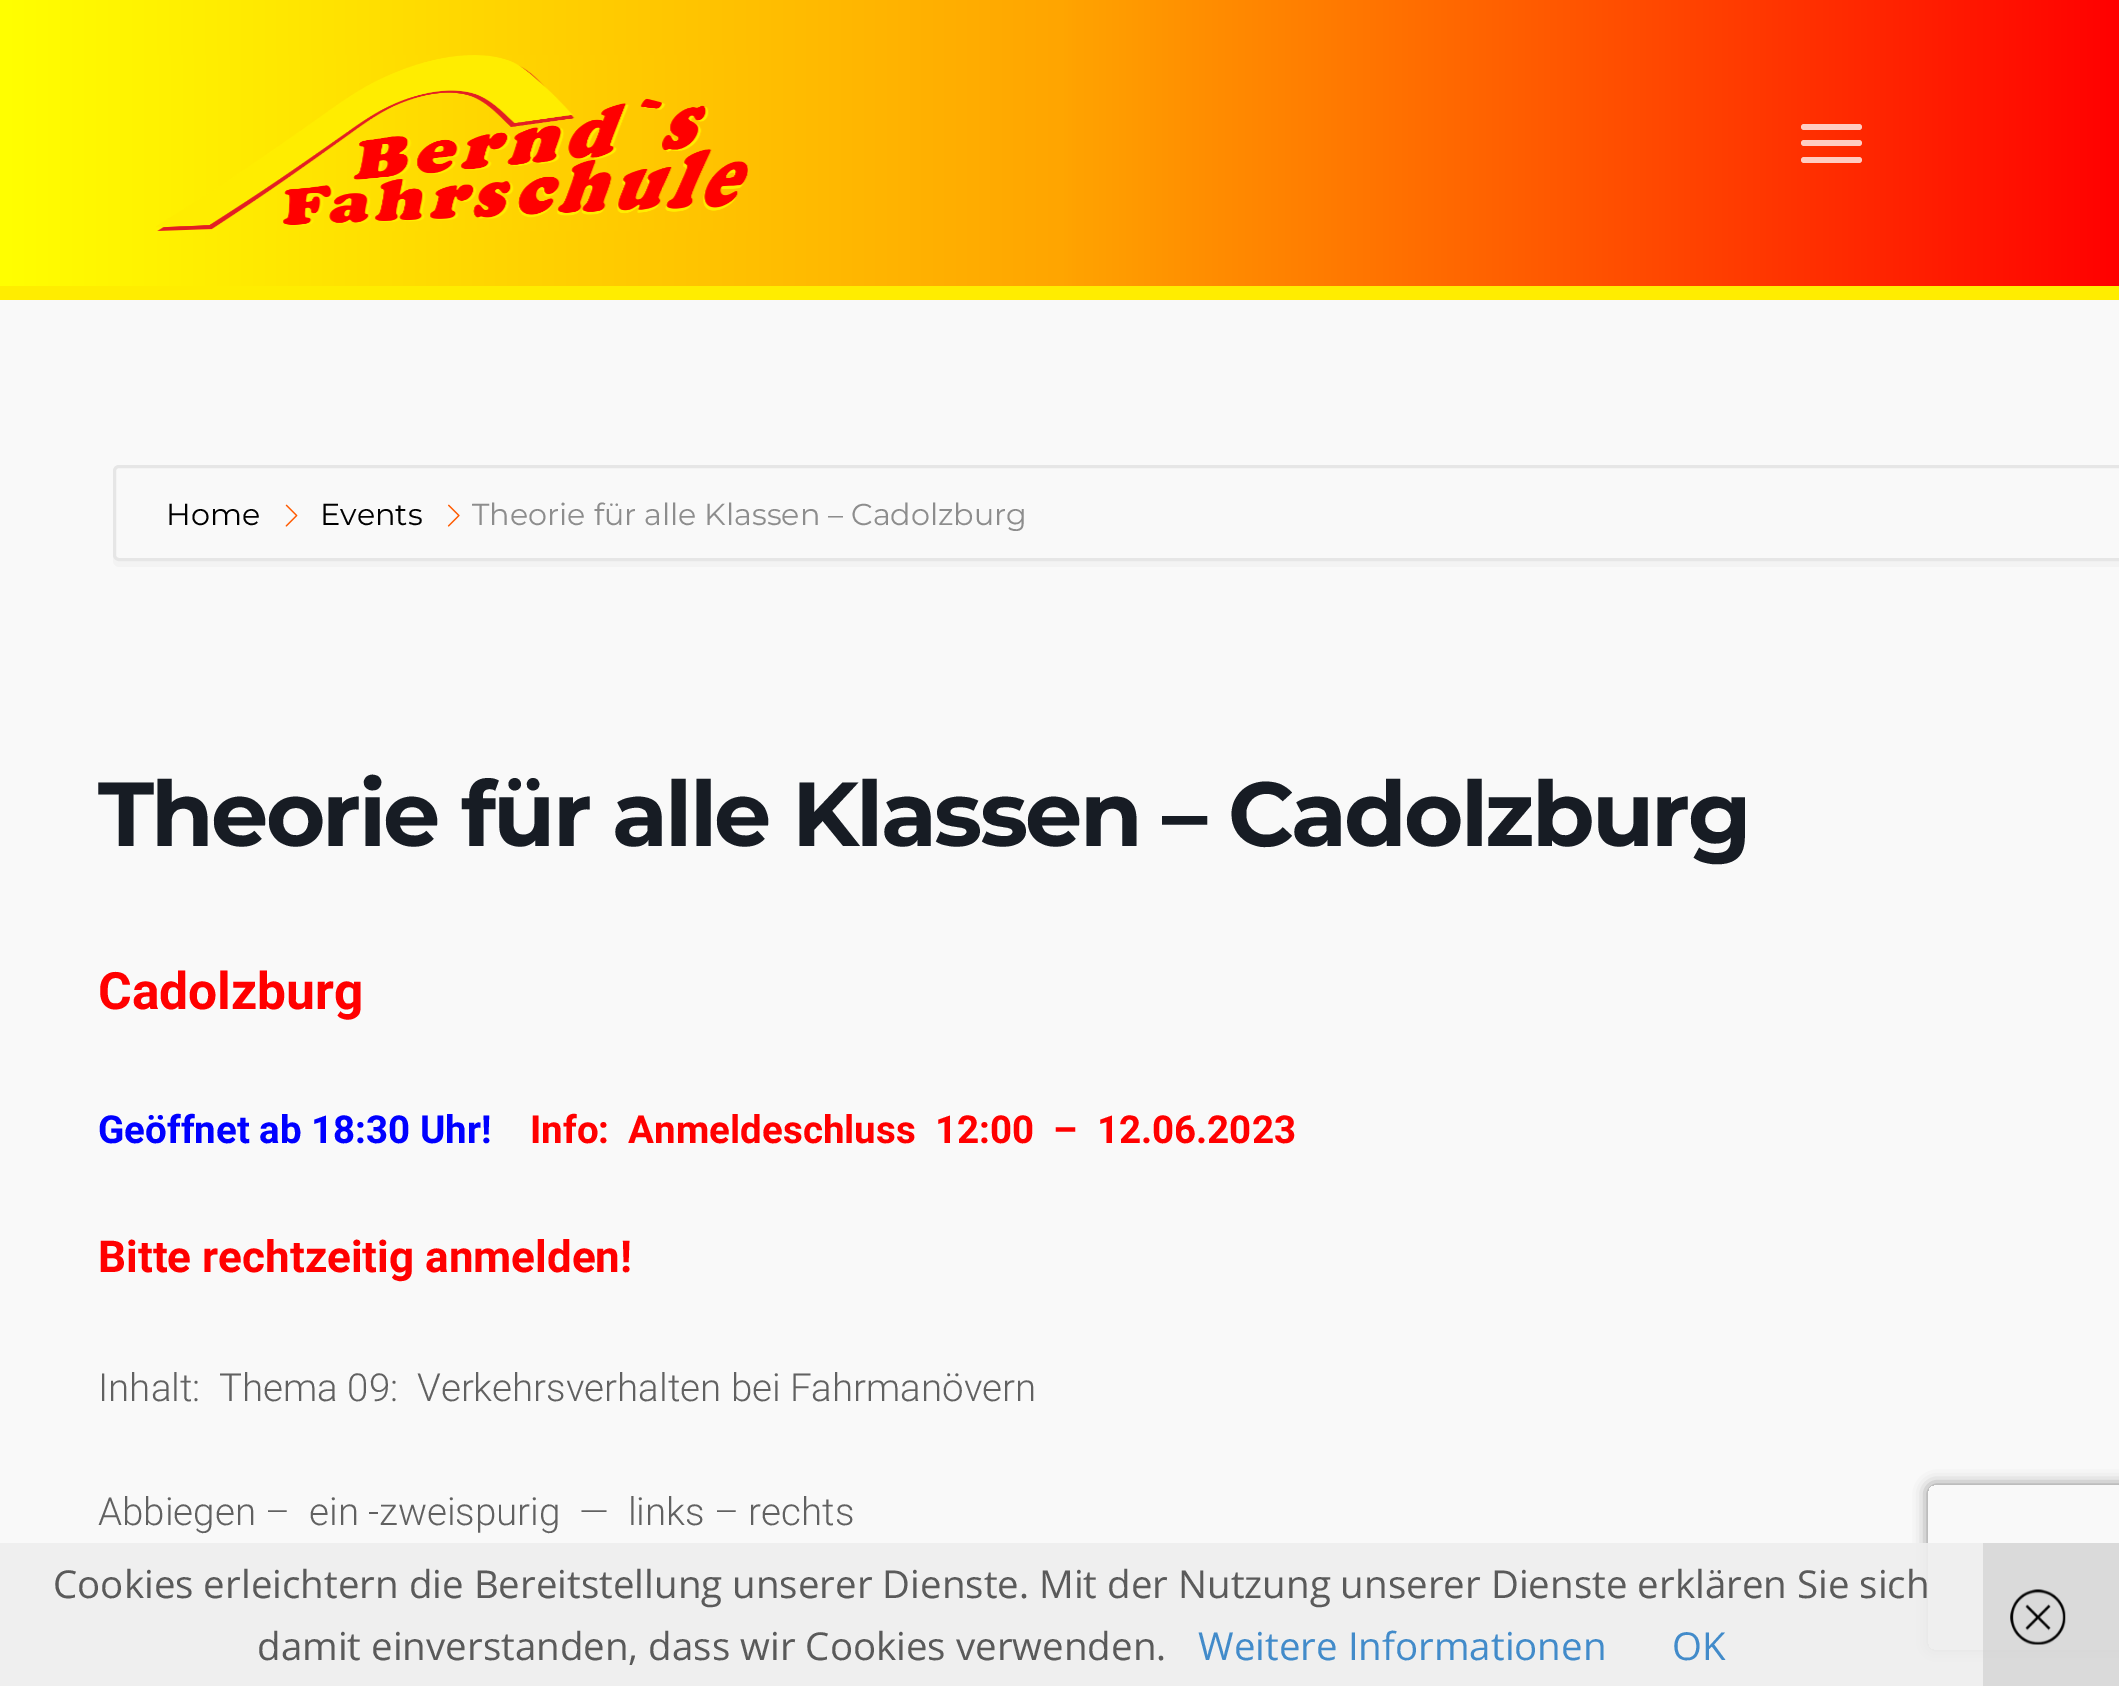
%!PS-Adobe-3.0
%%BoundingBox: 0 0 2119 1686
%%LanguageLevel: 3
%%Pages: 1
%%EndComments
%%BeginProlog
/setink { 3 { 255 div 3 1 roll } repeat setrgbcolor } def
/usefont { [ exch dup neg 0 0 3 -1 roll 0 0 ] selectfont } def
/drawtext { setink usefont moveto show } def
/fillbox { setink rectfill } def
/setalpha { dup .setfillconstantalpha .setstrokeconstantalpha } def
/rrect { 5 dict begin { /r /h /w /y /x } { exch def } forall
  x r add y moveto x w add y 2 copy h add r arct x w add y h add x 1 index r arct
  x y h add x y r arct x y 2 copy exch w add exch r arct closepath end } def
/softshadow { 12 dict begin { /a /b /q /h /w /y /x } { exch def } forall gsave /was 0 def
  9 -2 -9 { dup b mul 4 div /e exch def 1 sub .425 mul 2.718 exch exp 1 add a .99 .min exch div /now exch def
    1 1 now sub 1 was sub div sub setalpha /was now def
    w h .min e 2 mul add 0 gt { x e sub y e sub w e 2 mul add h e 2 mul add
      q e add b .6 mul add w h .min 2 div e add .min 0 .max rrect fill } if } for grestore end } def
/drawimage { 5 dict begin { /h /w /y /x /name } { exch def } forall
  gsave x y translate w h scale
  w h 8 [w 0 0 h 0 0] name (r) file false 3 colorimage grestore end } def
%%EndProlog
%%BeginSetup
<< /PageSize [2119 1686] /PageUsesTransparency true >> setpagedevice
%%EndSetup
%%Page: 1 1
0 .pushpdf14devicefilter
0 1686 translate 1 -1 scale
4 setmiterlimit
0 0 2119 1686 249 249 249 fillbox
0 286 2119 14 255 237 0 fillbox
gsave 0 0 moveto 2119 0 lineto 2119 286 lineto 0 286 lineto closepath clip newpath
<< /ShadingType 2 /ColorSpace /DeviceRGB /Coords [0 143 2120 143] /Extend [true true] /Function << /FunctionType 3 /Domain [0 1] /Functions [<< /FunctionType 2 /Domain [0 1] /C0 [1 1 0] /C1 [1 0.647 0] /N 1 >> << /FunctionType 2 /Domain [0 1] /C0 [1 0.647 0] /C1 [1 0 0] /N 1 >>] /Bounds [0.5] /Encode [0 1 0 1] >> >> shfill grestore
(assets/img1.rgb) 156 55 592 176 drawimage
0.76 setalpha
255 255 255 setink
1801 124 61 6 3 rrect fill
1801 140 61 6 3 rrect fill
1801 157 61 6 3 rrect fill
1 setalpha
243 243 243 setink
113 557 moveto 113 561 lineto 113 564 116 567 119 567 curveto 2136 567 lineto 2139 567 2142 564 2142 561 curveto 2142 557 lineto 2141 559 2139 561 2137 561 curveto 118 561 lineto 116 561 114 559 113 557 curveto closepath fill
230 230 230 setink
3 setlinewidth
114.5 466.5 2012 93 4.5 rrect stroke
(Home) 166 525 /Montserrat-Regular 30.25 0 0 0 drawtext
(assets/img2.rgb) 285 504 13 23 drawimage
(Events) 320 525 /Montserrat-Regular 30.25 0 0 0 drawtext
(assets/img3.rgb) 447 504 13 23 drawimage
(Theorie für alle Klassen – Cadolzburg) 472 525 /Montserrat-Regular 30.25 141 141 141 drawtext
/Montserrat-Bold 90.75 usefont
23 28 36 setink
98 846 moveto -2.75 0 (Theorie für alle Klassen – Cadolzburg) ashow
(Cadolzburg) 98 1009 /Roboto-Bold 51.5 255 0 0 drawtext
(Geöffnet ab 18:30 Uhr!) 98 1143 /Roboto-Bold 38.5 0 0 255 drawtext
(Info:  Anmeldeschluss  12:00  –  12.06.2023) 530 1143 /Roboto-Bold 38.5 255 0 0 drawtext
(Bitte rechtzeitig anmelden!) 98 1272 /Roboto-Bold 44 255 0 0 drawtext
(Inhalt:  Thema 09:  Verkehrsverhalten bei Fahrmanövern) 98 1401 /Roboto-Light 38.5 97 97 97 drawtext
(Abbiegen –  ein -zweispurig  —  links – rechts) 98 1525 /Roboto-Light 38.5 97 97 97 drawtext
gsave
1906 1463 moveto 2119 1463 lineto 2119 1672 lineto 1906 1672 lineto closepath 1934 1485 moveto 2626 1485 lineto 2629.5 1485 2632 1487.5 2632 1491 curveto 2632 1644 lineto 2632 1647.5 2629.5 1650 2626 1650 curveto 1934 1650 lineto 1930.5 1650 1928 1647.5 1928 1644 curveto 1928 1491 lineto 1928 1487.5 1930.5 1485 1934 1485 curveto closepath eoclip newpath
128 128 128 setink
1928 1485 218 165 6 7 1 softshadow
grestore
0.9 setalpha
0 1543 2119 143 238 238 238 fillbox
1 setalpha
(Cookies erleichtern die Bereitstellung unserer Dienste. Mit der Nutzung unserer Dienste erklären Sie sich) 53 1598 /OpenSans-Regular 38.5 90 90 90 drawtext
(damit einverstanden, dass wir Cookies verwenden.) 257 1660 /OpenSans-Regular 38.5 90 90 90 drawtext
(Weitere Informationen) 1198 1660 /OpenSans-Regular 38.5 66 139 202 drawtext
(OK) 1672 1660 /OpenSans-Regular 38.5 66 139 202 drawtext
0.6 setalpha
1983 1543 136 143 204 204 204 fillbox
1 setalpha
(assets/img4.rgb) 2010 1589 56 56 drawimage
.poppdf14devicefilter showpage
%%EOF
